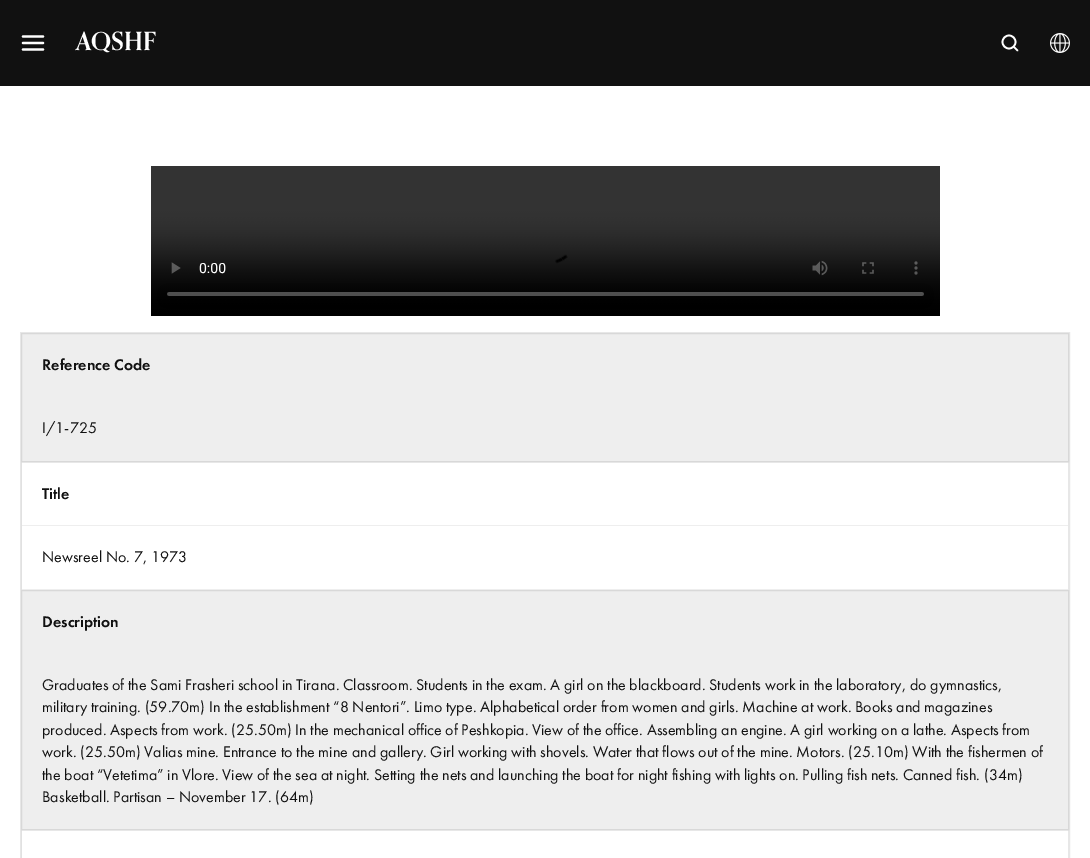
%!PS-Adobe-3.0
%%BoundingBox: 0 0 1090 858
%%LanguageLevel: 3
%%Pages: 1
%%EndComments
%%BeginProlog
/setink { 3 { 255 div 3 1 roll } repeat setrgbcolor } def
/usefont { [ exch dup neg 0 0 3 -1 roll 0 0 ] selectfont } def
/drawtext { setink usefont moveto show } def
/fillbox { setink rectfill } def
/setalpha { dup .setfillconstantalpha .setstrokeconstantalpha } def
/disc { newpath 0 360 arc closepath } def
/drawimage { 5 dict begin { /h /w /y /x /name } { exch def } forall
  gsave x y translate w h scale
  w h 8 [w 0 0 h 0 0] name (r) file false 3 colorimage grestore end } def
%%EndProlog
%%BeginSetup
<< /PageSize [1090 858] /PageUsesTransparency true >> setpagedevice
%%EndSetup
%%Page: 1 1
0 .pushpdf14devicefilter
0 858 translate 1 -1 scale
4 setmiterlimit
0 0 1090 858 255 255 255 fillbox
0 0 1090 86 17 17 17 fillbox
255 255 255 setink
2.2 setlinewidth
1 setlinecap
1 setlinejoin
23 43 moveto 43 43 lineto 23 36.5 moveto 43 36.5 lineto 23 49.5 moveto 43 49.5 lineto stroke
(AQSHF) 76 50 /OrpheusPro-Bold 25 255 255 255 drawtext
1.7 setlinewidth
0 setlinecap
0 setlinejoin
1009 42 6.5 disc stroke
1 setlinecap
1 setlinejoin
1017.5 50.5 moveto 1014 47 lineto stroke
(assets/img1.rgb) 1050 33 20 20 drawimage
(assets/img2.rgb) 151 166 789 150 drawimage
231 231 231 setink
1 setlinewidth
0 setlinecap
0 setlinejoin
20.5 332.5 1049 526 rectstroke
238 238 238 setink
21.5 333.5 moveto 1068.5 333.5 lineto 1068.5 461.5 lineto 21.5 461.5 lineto closepath gsave fill grestore
216 216 216 setink
stroke
(Reference Code) 42 370 /FuturaPT-Medium 16 17 17 17 drawtext
(I/1-725) 42 433 /FuturaPT-Regular 16 17 17 17 drawtext
231 231 231 setink
21 462 moveto 1069 462 lineto 1068 463 lineto 22 463 lineto closepath fill
0.1 setalpha
17 17 17 setink
1069 462 moveto 1069 590 lineto 1068 590 lineto 1068 463 lineto closepath fill
21 590 moveto 21 462 lineto 22 463 lineto 22 590 lineto closepath fill
1 setalpha
22 525 1046 1 238 238 238 fillbox
(Title) 42 499 /FuturaPT-Medium 16 17 17 17 drawtext
22 589 1046 1 238 238 238 fillbox
(Newsreel No. 7, 1973) 42 562 /FuturaPT-Regular 16 17 17 17 drawtext
238 238 238 setink
21.5 590.5 moveto 1068.5 590.5 lineto 1068.5 829.5 lineto 21.5 829.5 lineto closepath gsave fill grestore
216 216 216 setink
stroke
(Description) 42 627 /FuturaPT-Medium 16 17 17 17 drawtext
(Graduates of the Sami Frasheri school in Tirana. Classroom. Students in the exam. A girl on the blackboard. Students work in the laboratory, do gymnastics,) 42 690 /FuturaPT-Regular 16 17 17 17 drawtext
(military training. \(59.70m\) In the establishment “8 Nentori”. Limo type. Alphabetical order from women and girls. Machine at work. Books and magazines) 42 712 /FuturaPT-Regular 16 17 17 17 drawtext
(produced. Aspects from work. \(25.50m\) In the mechanical office of Peshkopia. View of the office. Assembling an engine. A girl working on a lathe. Aspects from) 42 735 /FuturaPT-Regular 16 17 17 17 drawtext
(work. \(25.50m\) Valias mine. Entrance to the mine and gallery. Girl working with shovels. Water that flows out of the mine. Motors. \(25.10m\) With the fishermen of) 42 757 /FuturaPT-Regular 16 17 17 17 drawtext
(the boat “Vetetima” in Vlore. View of the sea at night. Setting the nets and launching the boat for night fishing with lights on. Pulling fish nets. Canned fish. \(34m\)) 42 780 /FuturaPT-Regular 16 17 17 17 drawtext
(Basketball. Partisan – November 17. \(64m\)) 42 802 /FuturaPT-Regular 16 17 17 17 drawtext
231 231 231 setink
21 830 moveto 1069 830 lineto 1068 831 lineto 22 831 lineto closepath fill
0.1 setalpha
17 17 17 setink
1069 830 moveto 1069 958 lineto 1068 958 lineto 1068 831 lineto closepath fill
21 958 moveto 21 830 lineto 22 831 lineto 22 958 lineto closepath fill
.poppdf14devicefilter showpage
%%EOF
